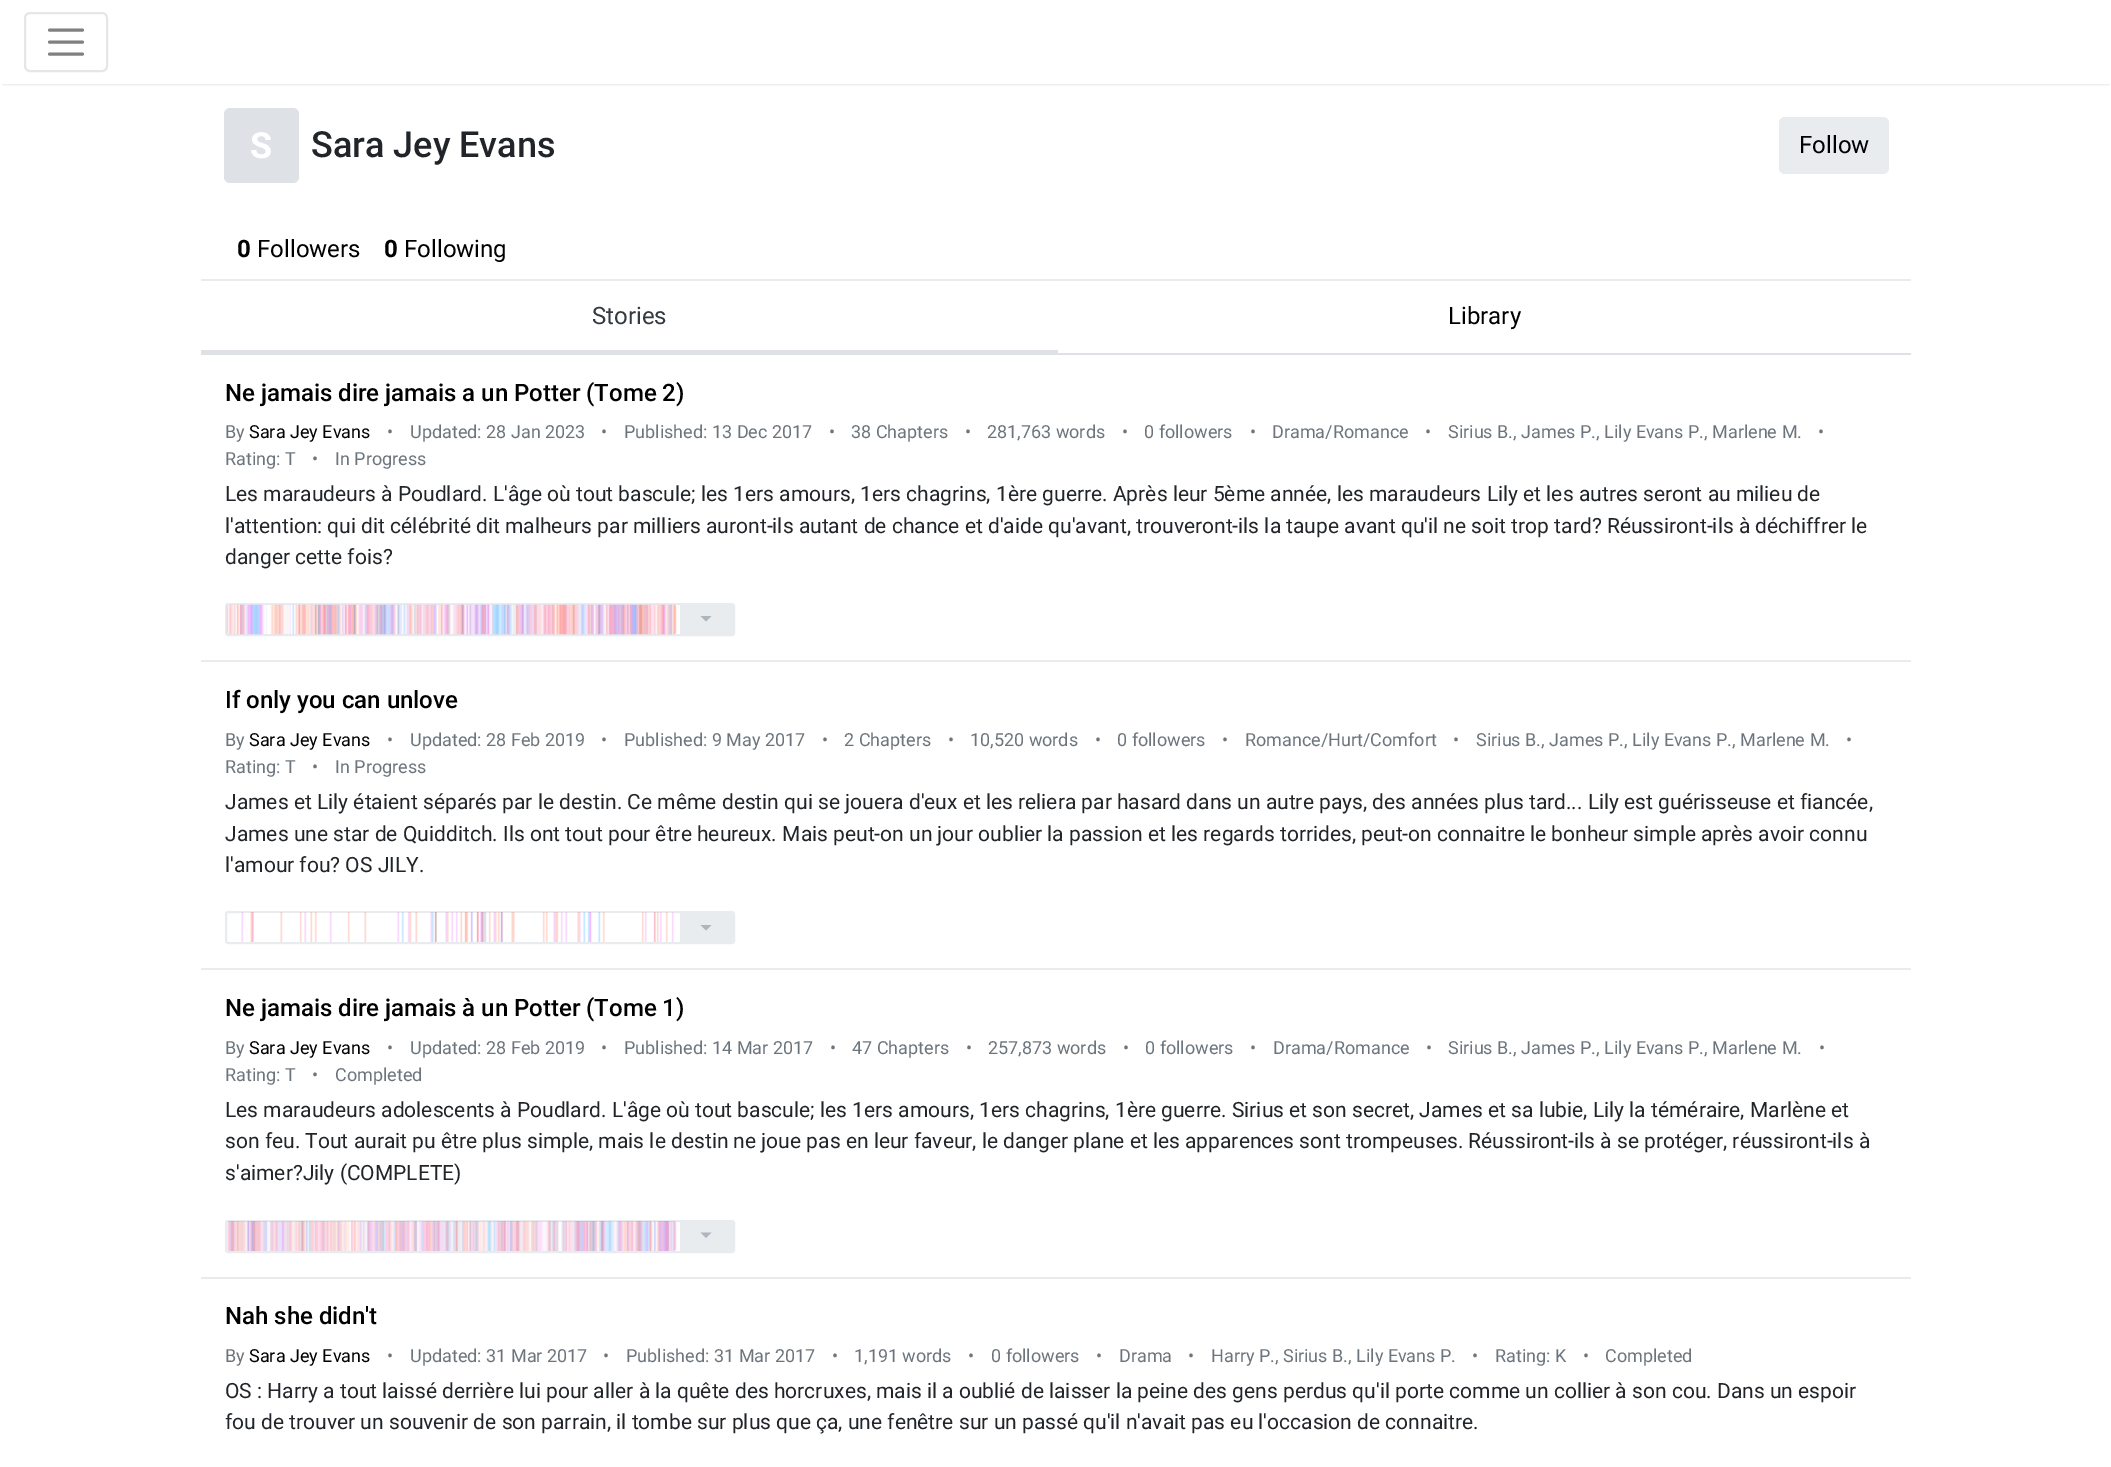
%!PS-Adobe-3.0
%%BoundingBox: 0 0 2111 1467
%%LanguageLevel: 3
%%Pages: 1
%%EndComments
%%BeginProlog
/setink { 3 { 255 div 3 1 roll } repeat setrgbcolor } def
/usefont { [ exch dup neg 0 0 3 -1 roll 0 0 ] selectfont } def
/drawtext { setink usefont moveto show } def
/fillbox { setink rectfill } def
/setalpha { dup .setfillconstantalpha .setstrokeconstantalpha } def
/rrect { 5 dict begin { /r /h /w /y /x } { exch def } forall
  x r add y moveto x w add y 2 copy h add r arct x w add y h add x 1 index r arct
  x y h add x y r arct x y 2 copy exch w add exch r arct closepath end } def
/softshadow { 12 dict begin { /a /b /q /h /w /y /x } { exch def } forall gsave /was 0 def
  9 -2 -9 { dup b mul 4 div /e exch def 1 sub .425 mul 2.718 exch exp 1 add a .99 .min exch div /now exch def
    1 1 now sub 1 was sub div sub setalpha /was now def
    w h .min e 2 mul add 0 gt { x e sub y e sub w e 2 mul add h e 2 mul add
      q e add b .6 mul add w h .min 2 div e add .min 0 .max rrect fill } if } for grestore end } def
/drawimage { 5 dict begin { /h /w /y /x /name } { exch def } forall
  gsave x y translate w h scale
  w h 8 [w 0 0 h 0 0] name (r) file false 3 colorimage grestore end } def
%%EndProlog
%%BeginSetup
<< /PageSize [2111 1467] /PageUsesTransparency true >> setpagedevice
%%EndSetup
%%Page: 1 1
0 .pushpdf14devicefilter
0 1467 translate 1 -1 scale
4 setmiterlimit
0 0 2111 1467 255 255 255 fillbox
gsave
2 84 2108 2 rectclip
0 0 0 setink
3 6 2106 78 0 1.5 0.15 softshadow
grestore
230 230 230 setink
2 setlinewidth
25 13 82 58 5 rrect stroke
128 128 128 setink
3 setlinewidth
1 setlinecap
49.5 30 moveto 82.5 30 lineto 49.5 42 moveto 82.5 42 lineto 49.5 54 moveto 82.5 54 lineto stroke
222 226 230 setink
224 108 75 75 6 rrect fill
(S) 250 158 /Roboto-Bold 36 255 255 255 drawtext
(Sara Jey Evans) 311 157 /Roboto-Medium 36 33 37 41 drawtext
233 236 239 setink
1779 117 110 57 6 rrect fill
(Follow) 1799 153 /Roboto-Regular 24 0 0 0 drawtext
201 279 1710 2 233 236 239 fillbox
(0) 237 257 /Roboto-Bold 24 0 0 0 drawtext
(Followers) 257 257 /Roboto-Regular 24 0 0 0 drawtext
(0) 384 257 /Roboto-Bold 24 0 0 0 drawtext
(Following) 404 257 /Roboto-Regular 24 0 0 0 drawtext
201 353 1710 2 222 226 230 fillbox
(Stories) 592 324 /Roboto-Regular 24 52 58 64 drawtext
201 350 857 3 222 226 230 fillbox
(Library) 1448 324 /Roboto-Regular 24 0 0 0 drawtext
201 660 1710 2 233 236 239 fillbox
(Ne jamais dire jamais a un Potter \(Tome 2\)) 225 401 /Roboto-Medium 24 0 0 0 drawtext
(By) 225 438 /Roboto-Regular 18 108 117 125 drawtext
(Sara Jey Evans) 249 438 /Roboto-Regular 18 0 0 0 drawtext
(•) 387 438 /Roboto-Regular 18 108 117 125 drawtext
(Updated: 28 Jan 2023) 410 438 /Roboto-Regular 18 108 117 125 drawtext
(•) 601 438 /Roboto-Regular 18 108 117 125 drawtext
(Published: 13 Dec 2017) 624 438 /Roboto-Regular 18 108 117 125 drawtext
(•) 829 438 /Roboto-Regular 18 108 117 125 drawtext
(38 Chapters) 851 438 /Roboto-Regular 18 108 117 125 drawtext
(•) 965 438 /Roboto-Regular 18 108 117 125 drawtext
(281,763 words) 987 438 /Roboto-Regular 18 108 117 125 drawtext
(•) 1122 438 /Roboto-Regular 18 108 117 125 drawtext
(0 followers) 1144 438 /Roboto-Regular 18 108 117 125 drawtext
(•) 1250 438 /Roboto-Regular 18 108 117 125 drawtext
(Drama/Romance) 1272 438 /Roboto-Regular 18 108 117 125 drawtext
(•) 1425 438 /Roboto-Regular 18 108 117 125 drawtext
(Sirius B., James P., Lily Evans P., Marlene M.) 1448 438 /Roboto-Regular 18 108 117 125 drawtext
(•) 1818 438 /Roboto-Regular 18 108 117 125 drawtext
(Rating: T) 225 465 /Roboto-Regular 18 108 117 125 drawtext
(•) 312 465 /Roboto-Regular 18 108 117 125 drawtext
(In Progress) 335 465 /Roboto-Regular 18 108 117 125 drawtext
(Les maraudeurs à Poudlard. L'âge où tout bascule; les 1ers amours, 1ers chagrins, 1ère guerre. Après leur 5ème année, les maraudeurs Lily et les autres seront au milieu de) 225 501 /Roboto-Regular 21 33 37 41 drawtext
(l'attention: qui dit célébrité dit malheurs par milliers auront-ils autant de chance et d'aide qu'avant, trouveront-ils la taupe avant qu'il ne soit trop tard? Réussiront-ils à déchiffrer le) 225 533 /Roboto-Regular 21 33 37 41 drawtext
(danger cette fois?) 225 564 /Roboto-Regular 21 33 37 41 drawtext
233 236 239 setink
2 setlinewidth
0 setlinecap
226 604 508 31 2 rrect stroke
(assets/img3.rgb) 234 604 439 31 drawimage
(assets/img1.rgb) 226 604 450 31 drawimage
(assets/img2.rgb) 226 604 451 31 drawimage
(assets/img4.rgb) 315 605 170 29 drawimage
680 605 moveto 731 605 lineto 732.5 605 734 606.5 734 608 curveto 734 632 lineto 734 633.5 732.5 635 731 635 curveto 680 635 lineto closepath fill
173 181 189 setink
700.5 616 moveto 711.5 616 lineto 706 621.5 lineto closepath fill
201 968 1710 2 233 236 239 fillbox
(If only you can unlove) 225 708 /Roboto-Medium 24 0 0 0 drawtext
(By) 225 746 /Roboto-Regular 18 108 117 125 drawtext
(Sara Jey Evans) 249 746 /Roboto-Regular 18 0 0 0 drawtext
(•) 387 746 /Roboto-Regular 18 108 117 125 drawtext
(Updated: 28 Feb 2019) 410 746 /Roboto-Regular 18 108 117 125 drawtext
(•) 601 746 /Roboto-Regular 18 108 117 125 drawtext
(Published: 9 May 2017) 624 746 /Roboto-Regular 18 108 117 125 drawtext
(•) 822 746 /Roboto-Regular 18 108 117 125 drawtext
(2 Chapters) 844 746 /Roboto-Regular 18 108 117 125 drawtext
(•) 948 746 /Roboto-Regular 18 108 117 125 drawtext
(10,520 words) 970 746 /Roboto-Regular 18 108 117 125 drawtext
(•) 1095 746 /Roboto-Regular 18 108 117 125 drawtext
(0 followers) 1117 746 /Roboto-Regular 18 108 117 125 drawtext
(•) 1222 746 /Roboto-Regular 18 108 117 125 drawtext
(Romance/Hurt/Comfort) 1245 746 /Roboto-Regular 18 108 117 125 drawtext
(•) 1453 746 /Roboto-Regular 18 108 117 125 drawtext
(Sirius B., James P., Lily Evans P., Marlene M.) 1476 746 /Roboto-Regular 18 108 117 125 drawtext
(•) 1846 746 /Roboto-Regular 18 108 117 125 drawtext
(Rating: T) 225 773 /Roboto-Regular 18 108 117 125 drawtext
(•) 312 773 /Roboto-Regular 18 108 117 125 drawtext
(In Progress) 335 773 /Roboto-Regular 18 108 117 125 drawtext
(James et Lily étaient séparés par le destin. Ce même destin qui se jouera d'eux et les reliera par hasard dans un autre pays, des années plus tard... Lily est guérisseuse et fiancée,) 225 809 /Roboto-Regular 21 33 37 41 drawtext
(James une star de Quidditch. Ils ont tout pour être heureux. Mais peut-on un jour oublier la passion et les regards torrides, peut-on connaitre le bonheur simple après avoir connu) 225 841 /Roboto-Regular 21 33 37 41 drawtext
(l'amour fou? OS JILY.) 225 872 /Roboto-Regular 21 33 37 41 drawtext
233 236 239 setink
226 912 508 31 2 rrect stroke
(assets/img7.rgb) 401 912 200 30 drawimage
(assets/img5.rgb) 241 912 433 30 drawimage
(assets/img6.rgb) 250 912 418 30 drawimage
680 912 moveto 731 912 lineto 732.5 912 734 913.5 734 915 curveto 734 939 lineto 734 940.5 732.5 942 731 942 curveto 680 942 lineto closepath fill
173 181 189 setink
700.5 925 moveto 711.5 925 lineto 706 930.5 lineto closepath fill
201 1277 1710 2 233 236 239 fillbox
(Ne jamais dire jamais à un Potter \(Tome 1\)) 225 1016 /Roboto-Medium 24 0 0 0 drawtext
(By) 225 1054 /Roboto-Regular 18 108 117 125 drawtext
(Sara Jey Evans) 249 1054 /Roboto-Regular 18 0 0 0 drawtext
(•) 387 1054 /Roboto-Regular 18 108 117 125 drawtext
(Updated: 28 Feb 2019) 410 1054 /Roboto-Regular 18 108 117 125 drawtext
(•) 601 1054 /Roboto-Regular 18 108 117 125 drawtext
(Published: 14 Mar 2017) 624 1054 /Roboto-Regular 18 108 117 125 drawtext
(•) 830 1054 /Roboto-Regular 18 108 117 125 drawtext
(47 Chapters) 852 1054 /Roboto-Regular 18 108 117 125 drawtext
(•) 966 1054 /Roboto-Regular 18 108 117 125 drawtext
(257,873 words) 988 1054 /Roboto-Regular 18 108 117 125 drawtext
(•) 1123 1054 /Roboto-Regular 18 108 117 125 drawtext
(0 followers) 1145 1054 /Roboto-Regular 18 108 117 125 drawtext
(•) 1250 1054 /Roboto-Regular 18 108 117 125 drawtext
(Drama/Romance) 1273 1054 /Roboto-Regular 18 108 117 125 drawtext
(•) 1426 1054 /Roboto-Regular 18 108 117 125 drawtext
(Sirius B., James P., Lily Evans P., Marlene M.) 1448 1054 /Roboto-Regular 18 108 117 125 drawtext
(•) 1819 1054 /Roboto-Regular 18 108 117 125 drawtext
(Rating: T) 225 1081 /Roboto-Regular 18 108 117 125 drawtext
(•) 312 1081 /Roboto-Regular 18 108 117 125 drawtext
(Completed) 335 1081 /Roboto-Regular 18 108 117 125 drawtext
(Les maraudeurs adolescents à Poudlard. L'âge où tout bascule; les 1ers amours, 1ers chagrins, 1ère guerre. Sirius et son secret, James et sa lubie, Lily la téméraire, Marlène et) 225 1117 /Roboto-Regular 21 33 37 41 drawtext
(son feu. Tout aurait pu être plus simple, mais le destin ne joue pas en leur faveur, le danger plane et les apparences sont trompeuses. Réussiront-ils à se protéger, réussiront-ils à) 225 1148 /Roboto-Regular 21 33 37 41 drawtext
(s'aimer?Jily \(COMPLETE\)) 225 1180 /Roboto-Regular 21 33 37 41 drawtext
233 236 239 setink
226 1221 508 31 2 rrect stroke
(assets/img8.rgb) 227 1221 449 30 drawimage
(assets/img9.rgb) 227 1221 450 30 drawimage
(assets/img10.rgb) 227 1221 450 30 drawimage
680 1221 moveto 731 1221 lineto 732.5 1221 734 1222.5 734 1224 curveto 734 1248 lineto 734 1249.5 732.5 1251 731 1251 curveto 680 1251 lineto closepath fill
173 181 189 setink
700.5 1232.5 moveto 711.5 1232.5 lineto 706 1238 lineto closepath fill
(Nah she didn't) 225 1324 /Roboto-Medium 24 0 0 0 drawtext
(By) 225 1362 /Roboto-Regular 18 108 117 125 drawtext
(Sara Jey Evans) 249 1362 /Roboto-Regular 18 0 0 0 drawtext
(•) 387 1362 /Roboto-Regular 18 108 117 125 drawtext
(Updated: 31 Mar 2017) 410 1362 /Roboto-Regular 18 108 117 125 drawtext
(•) 603 1362 /Roboto-Regular 18 108 117 125 drawtext
(Published: 31 Mar 2017) 626 1362 /Roboto-Regular 18 108 117 125 drawtext
(•) 832 1362 /Roboto-Regular 18 108 117 125 drawtext
(1,191 words) 854 1362 /Roboto-Regular 18 108 117 125 drawtext
(•) 968 1362 /Roboto-Regular 18 108 117 125 drawtext
(0 followers) 991 1362 /Roboto-Regular 18 108 117 125 drawtext
(•) 1096 1362 /Roboto-Regular 18 108 117 125 drawtext
(Drama) 1119 1362 /Roboto-Regular 18 108 117 125 drawtext
(•) 1188 1362 /Roboto-Regular 18 108 117 125 drawtext
(Harry P., Sirius B., Lily Evans P.) 1211 1362 /Roboto-Regular 18 108 117 125 drawtext
(•) 1472 1362 /Roboto-Regular 18 108 117 125 drawtext
(Rating: K) 1495 1362 /Roboto-Regular 18 108 117 125 drawtext
(•) 1583 1362 /Roboto-Regular 18 108 117 125 drawtext
(Completed) 1605 1362 /Roboto-Regular 18 108 117 125 drawtext
(OS : Harry a tout laissé derrière lui pour aller à la quête des horcruxes, mais il a oublié de laisser la peine des gens perdus qu'il porte comme un collier à son cou. Dans un espoir) 225 1398 /Roboto-Regular 21 33 37 41 drawtext
(fou de trouver un souvenir de son parrain, il tombe sur plus que ça, une fenêtre sur un passé qu'il n'avait pas eu l'occasion de connaitre.) 225 1429 /Roboto-Regular 21 33 37 41 drawtext
.poppdf14devicefilter showpage
%%EOF
